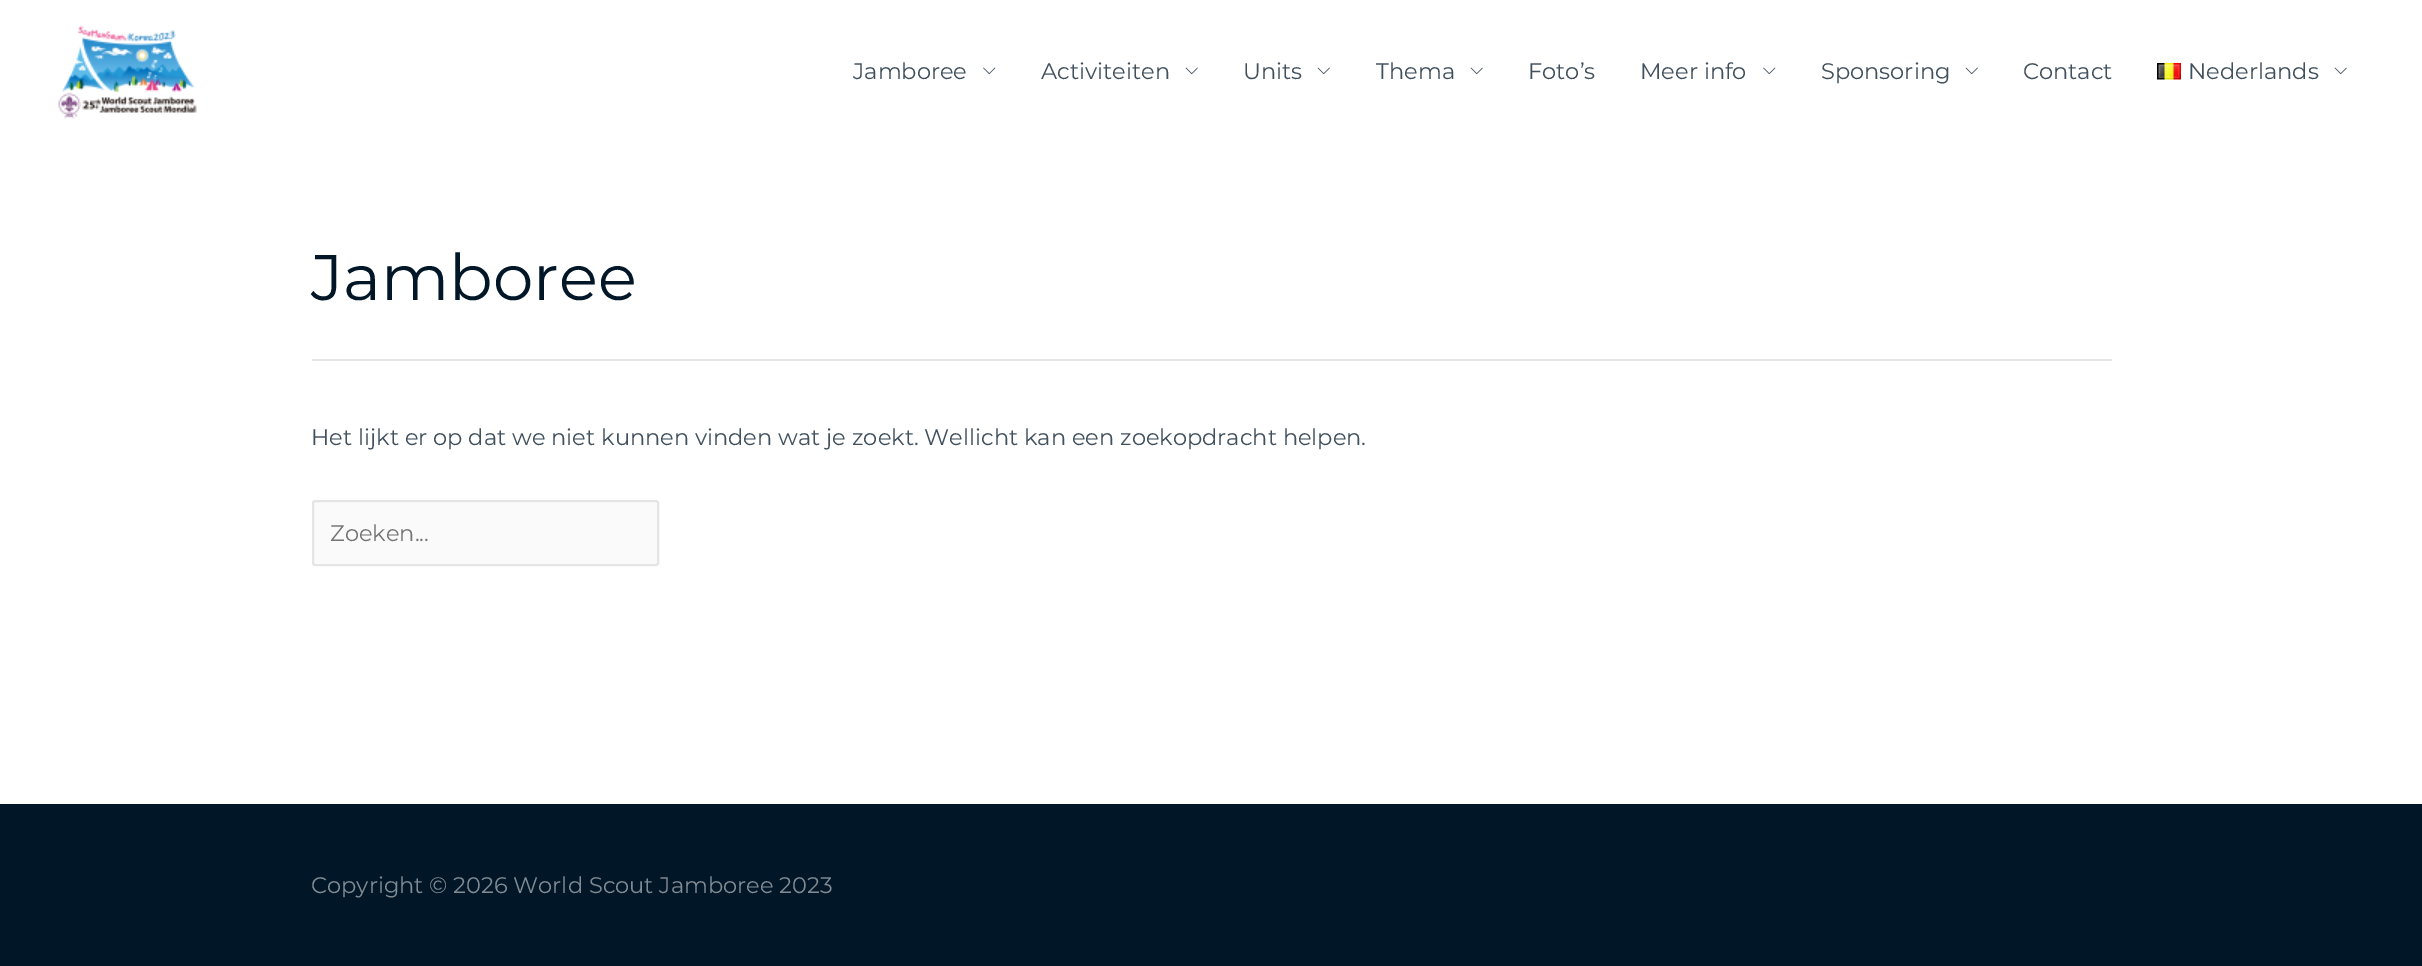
%!PS-Adobe-3.0
%%BoundingBox: 0 0 2422 966
%%LanguageLevel: 3
%%Pages: 1
%%EndComments
%%BeginProlog
/setink { 3 { 255 div 3 1 roll } repeat setrgbcolor } def
/usefont { [ exch dup neg 0 0 3 -1 roll 0 0 ] selectfont } def
/drawtext { setink usefont moveto show } def
/fillbox { setink rectfill } def
/rrect { 5 dict begin { /r /h /w /y /x } { exch def } forall
  x r add y moveto x w add y 2 copy h add r arct x w add y h add x 1 index r arct
  x y h add x y r arct x y 2 copy exch w add exch r arct closepath end } def
/drawimage { 5 dict begin { /h /w /y /x /name } { exch def } forall
  gsave x y translate w h scale
  w h 8 [w 0 0 h 0 0] name (r) file false 3 colorimage grestore end } def
%%EndProlog
%%BeginSetup
<< /PageSize [2422 966] >> setpagedevice
%%EndSetup
%%Page: 1 1
0 966 translate 1 -1 scale
4 setmiterlimit
0 0 2422 966 255 255 255 fillbox
(assets/img1.rgb) 58 25 139 94 drawimage
(Jamboree) 853 79 /Montserrat-Regular 22.5 65 80 93 drawtext
(assets/img2.rgb) 983 67 13 8 drawimage
(Activiteiten) 1041 79 /Montserrat-Regular 22.5 65 80 93 drawtext
(assets/img3.rgb) 1185 67 13 8 drawimage
(Units) 1243 79 /Montserrat-Regular 22.5 65 80 93 drawtext
(assets/img3.rgb) 1317 67 13 8 drawimage
(Thema) 1376 79 /Montserrat-Regular 22.5 65 80 93 drawtext
(assets/img3.rgb) 1470 67 13 8 drawimage
(Foto’s) 1528 79 /Montserrat-Regular 22.5 65 80 93 drawtext
(Meer info) 1640 79 /Montserrat-Regular 22.5 65 80 93 drawtext
(assets/img2.rgb) 1763 67 13 8 drawimage
(Sponsoring) 1821 79 /Montserrat-Regular 22.5 65 80 93 drawtext
(assets/img3.rgb) 1965 67 13 8 drawimage
(Contact) 2023 79 /Montserrat-Regular 22.5 65 80 93 drawtext
(assets/img4.rgb) 2157 63 24 17 drawimage
(Nederlands) 2188 79 /Montserrat-Regular 22.5 65 80 93 drawtext
(assets/img3.rgb) 2334 67 13 8 drawimage
312 359 1800 2 229 229 229 fillbox
(Jamboree) 311 300 /Montserrat-Regular 64.25 1 22 39 drawtext
(Het lijkt er op dat we niet kunnen vinden wat je zoekt. Wellicht kan een zoekopdracht helpen.) 311 445 /Montserrat-Regular 22.5 65 80 93 drawtext
250 250 250 setink
313 501 345 64 2 rrect gsave fill grestore
229 229 229 setink
2 setlinewidth
stroke
(Zoeken...) 330 541 /Montserrat-Regular 22.5 117 117 117 drawtext
0 804 2422 162 1 22 39 fillbox
(Copyright © 2026 World Scout Jamboree 2023) 311 893 /Montserrat-Regular 22.5 128 139 147 drawtext
showpage
%%EOF
